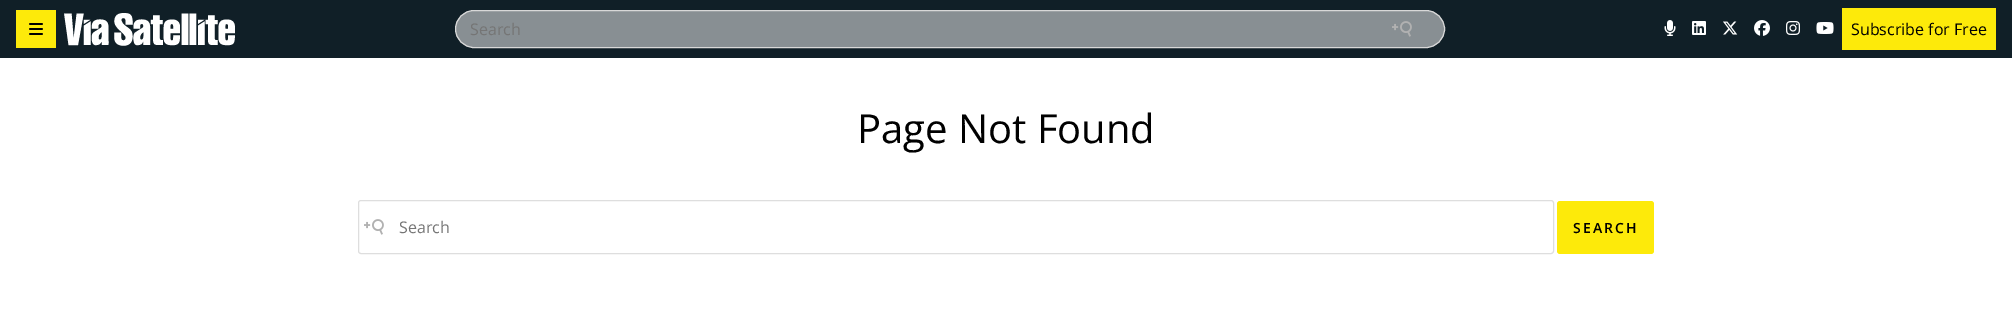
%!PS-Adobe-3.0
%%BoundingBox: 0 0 2012 317
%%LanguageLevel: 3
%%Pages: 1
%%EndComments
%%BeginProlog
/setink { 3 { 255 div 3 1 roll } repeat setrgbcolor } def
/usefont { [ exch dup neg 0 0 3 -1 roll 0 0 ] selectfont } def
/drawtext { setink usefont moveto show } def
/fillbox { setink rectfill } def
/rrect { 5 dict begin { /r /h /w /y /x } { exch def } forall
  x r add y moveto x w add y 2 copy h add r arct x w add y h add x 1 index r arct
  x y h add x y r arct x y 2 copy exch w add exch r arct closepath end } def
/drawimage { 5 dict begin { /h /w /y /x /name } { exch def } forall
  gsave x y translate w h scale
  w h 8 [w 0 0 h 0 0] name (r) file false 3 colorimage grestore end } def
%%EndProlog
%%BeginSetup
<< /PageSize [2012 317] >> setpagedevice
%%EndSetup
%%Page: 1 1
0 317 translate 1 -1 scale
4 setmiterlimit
0 0 2012 317 255 255 255 fillbox
0 0 2012 58 16 31 39 fillbox
16 10 40 38 253 234 10 fillbox
(assets/img1.rgb) 29 23 14 12 drawimage
(assets/img2.rgb) 64 13 171 33 drawimage
136 143 147 setink
455.5 10.5 989 37 18.5 rrect gsave fill grestore
216 216 216 setink
stroke
(assets/img3.rgb) 1392 21 20 16 drawimage
(Search) 470 35 /OpenSans-Regular 16 117 117 117 drawtext
(assets/img4.rgb) 1664 20 12 16 drawimage
(assets/img5.rgb) 1692 21 14 14 drawimage
(assets/img6.rgb) 1723 21 15 14 drawimage
(assets/img7.rgb) 1754 20 16 16 drawimage
(assets/img8.rgb) 1786 21 14 14 drawimage
(assets/img9.rgb) 1816 22 18 12 drawimage
1842 8 154 42 253 234 10 fillbox
(Subscribe for Free) 1851 35 /OpenSans-Regular 16 0 0 0 drawtext
(Page Not Found) 857 143 /OpenSans-Regular 40 0 0 0 drawtext
(assets/img10.rgb) 364 219 20 16 drawimage
222 222 222 setink
358.5 200.5 1195 53 2.5 rrect stroke
(Search) 399 233 /OpenSans-Regular 16 117 117 117 drawtext
253 234 10 setink
1557 201 97 53 3 rrect fill
/OpenSans-SemiBold 14 usefont
0 0 0 setink
1573 233 moveto 2 0 (SEARCH) ashow
showpage
%%EOF
